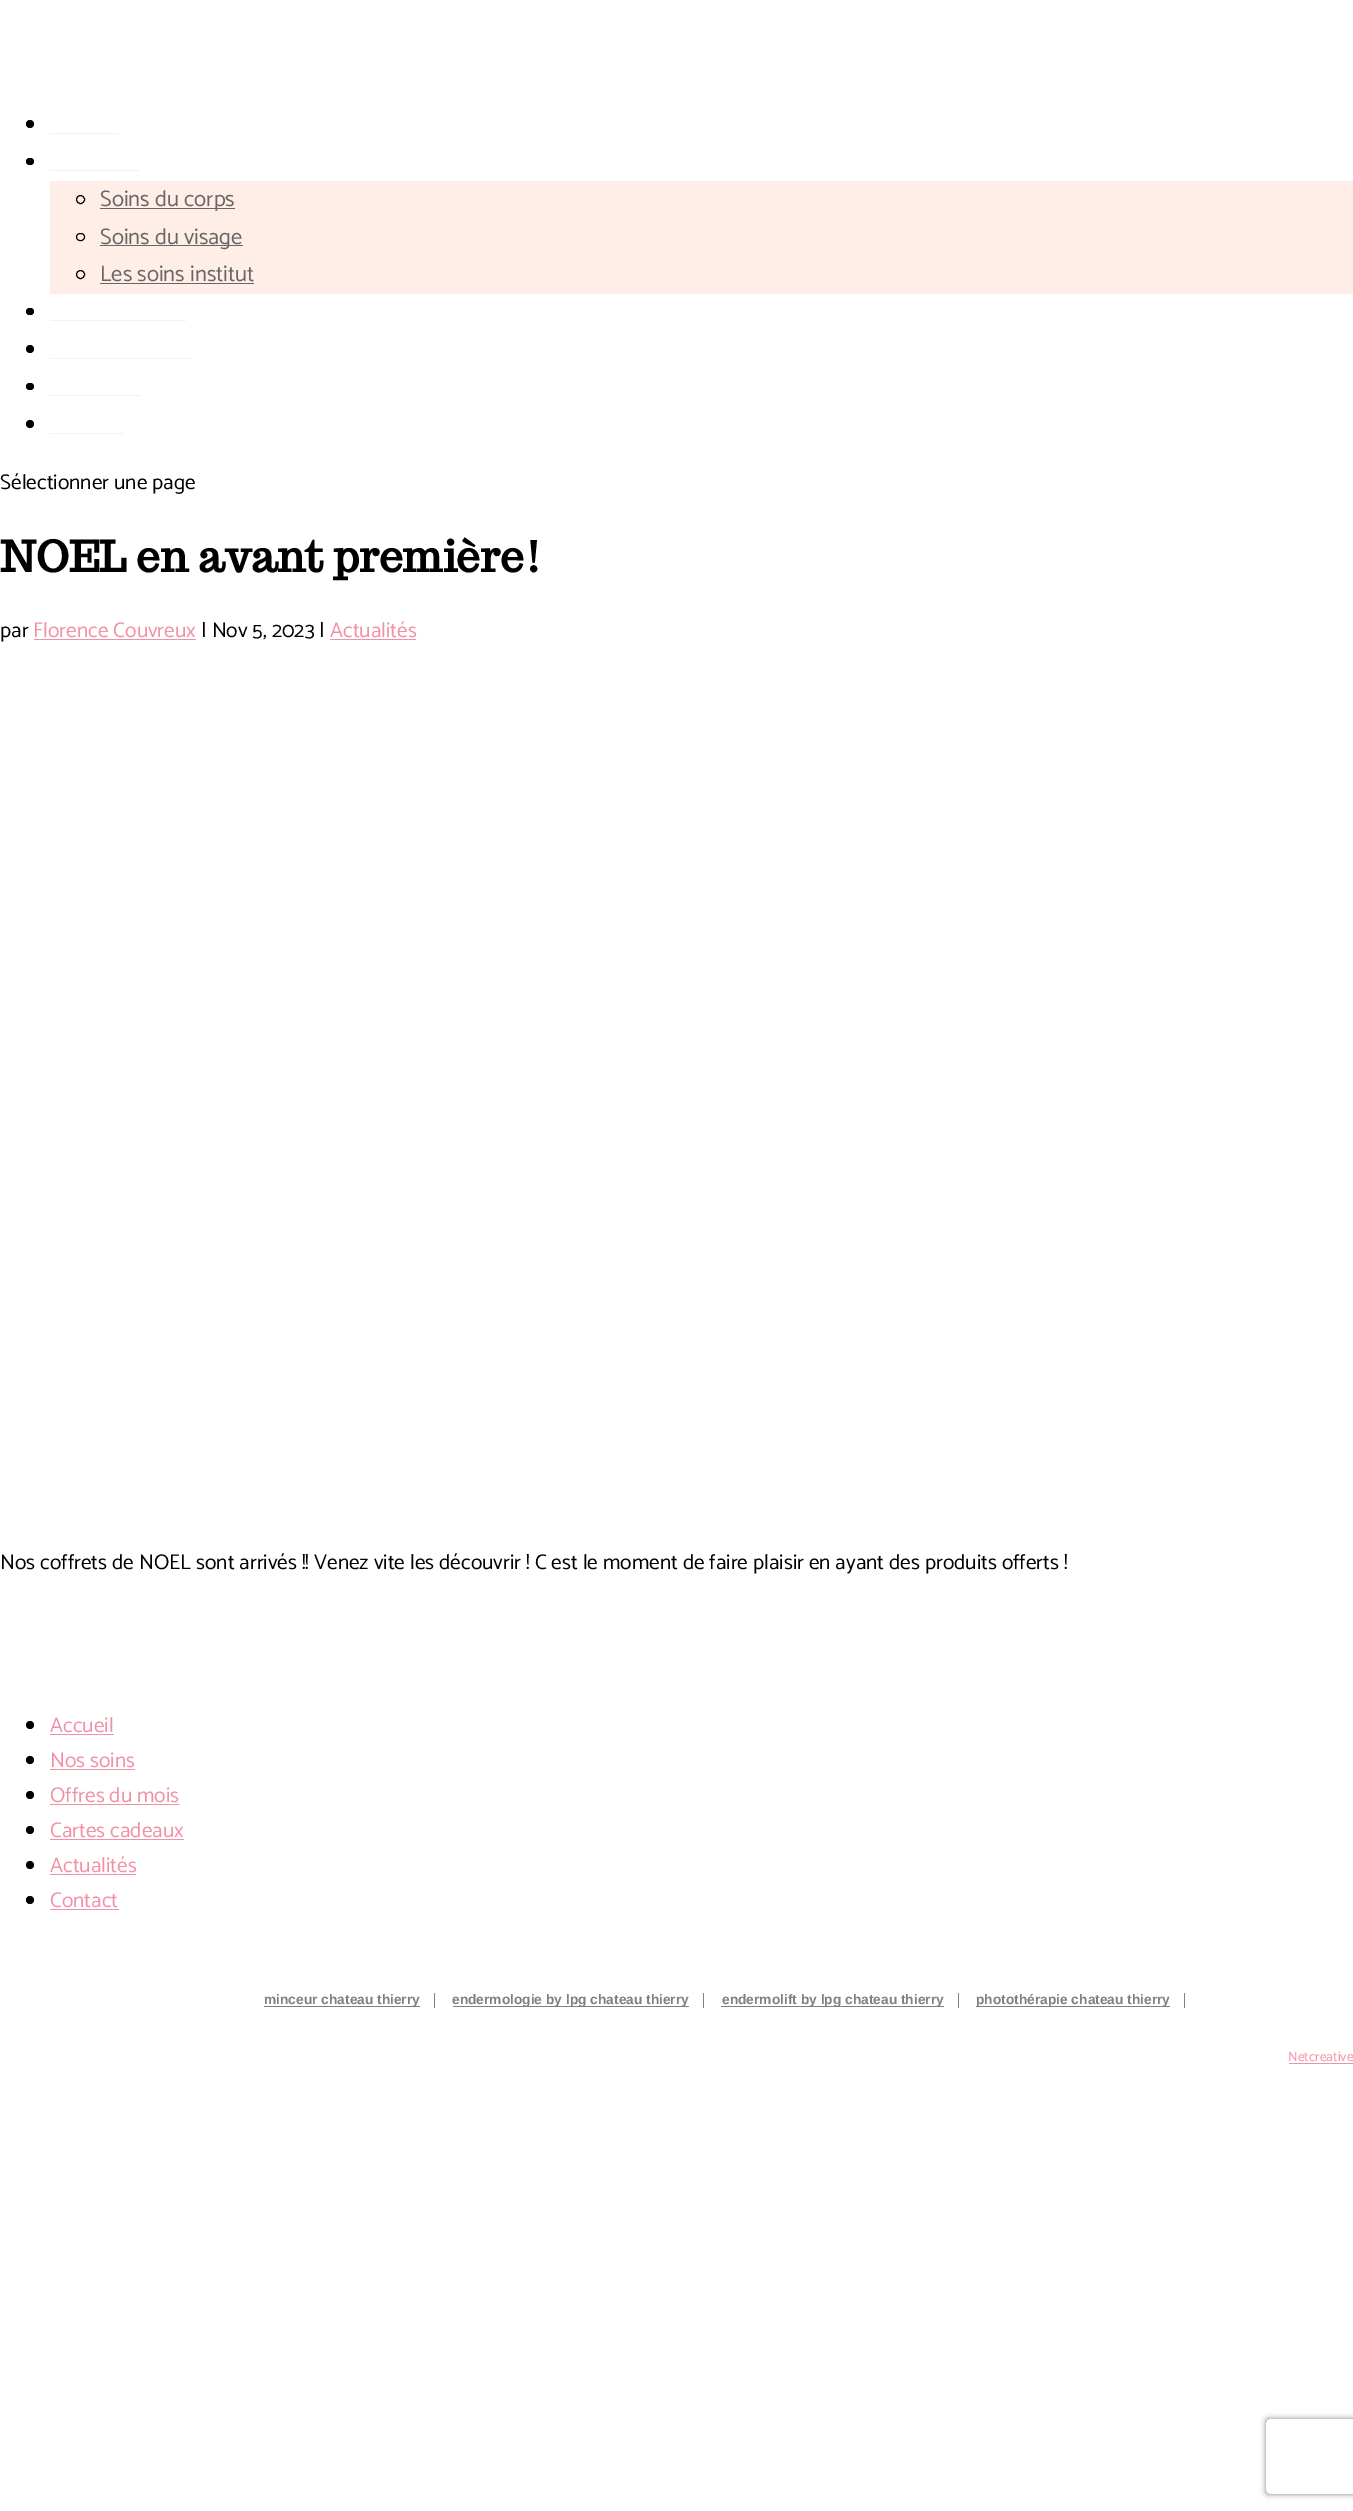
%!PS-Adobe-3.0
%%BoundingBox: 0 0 1353 2511
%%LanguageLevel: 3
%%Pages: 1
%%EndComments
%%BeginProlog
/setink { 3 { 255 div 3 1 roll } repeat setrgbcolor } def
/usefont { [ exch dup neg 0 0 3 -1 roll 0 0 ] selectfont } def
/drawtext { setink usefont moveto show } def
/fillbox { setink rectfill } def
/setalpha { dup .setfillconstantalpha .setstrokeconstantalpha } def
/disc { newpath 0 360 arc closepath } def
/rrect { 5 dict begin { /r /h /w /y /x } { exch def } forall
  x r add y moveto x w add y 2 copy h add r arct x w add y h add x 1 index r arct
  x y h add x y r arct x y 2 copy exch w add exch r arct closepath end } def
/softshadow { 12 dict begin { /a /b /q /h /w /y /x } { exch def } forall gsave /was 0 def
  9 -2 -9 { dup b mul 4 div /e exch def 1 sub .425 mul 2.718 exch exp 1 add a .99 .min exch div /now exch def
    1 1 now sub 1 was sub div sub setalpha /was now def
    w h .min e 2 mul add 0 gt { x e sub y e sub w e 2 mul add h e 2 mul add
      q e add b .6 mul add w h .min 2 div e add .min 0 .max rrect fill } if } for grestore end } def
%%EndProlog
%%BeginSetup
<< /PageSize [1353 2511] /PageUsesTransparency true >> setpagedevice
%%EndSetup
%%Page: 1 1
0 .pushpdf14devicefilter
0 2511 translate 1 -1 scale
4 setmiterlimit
0 0 1353 2511 255 255 255 fillbox
0 0 0 setink
30 124 4 disc fill
50 133 68 1 255 238 232 fillbox
0 0 0 setink
26 158 8 7 3.5 rrect fill
50 170 90 1 255 238 232 fillbox
50 181 1303 113 255 238 232 fillbox
0 0 0 setink
80.5 199.5 4 disc stroke
100 208 135 1 102 102 102 fillbox
(Soins du corps) 100 206 /Catamaran-Regular 22.5 102 102 102 drawtext
0 0 0 setink
76.5 233.5 8 7 3.5 rrect stroke
100 245 143 1 102 102 102 fillbox
(Soins du visage) 100 244 /Catamaran-Regular 22.5 102 102 102 drawtext
0 0 0 setink
80.5 274.5 4 disc stroke
(Les soins institut) 100 281 /Catamaran-Regular 22.5 102 102 102 drawtext
100 283 154 1 102 102 102 fillbox
0 0 0 setink
26 308 8 7 3.5 rrect fill
50 320 136 1 255 238 232 fillbox
0 0 0 setink
30 349 4 disc fill
50 358 141 1 255 238 232 fillbox
0 0 0 setink
26 383 8 7 3.5 rrect fill
50 395 91 1 255 238 232 fillbox
0 0 0 setink
30 424 4 disc fill
50 433 73 1 255 238 232 fillbox
(Sélectionner une page) 0 489 /Catamaran-Regular 21.25 0 0 0 drawtext
(NOEL en avant première!) 0 572 /Trocchi-Bold 42.5 0 0 0 drawtext
(par) 0 637 /Catamaran-Regular 21.25 0 0 0 drawtext
(Florence Couvreux) 33 637 /Catamaran-Regular 21.25 240 145 167 drawtext
34 639 162 1 240 145 167 fillbox
(| Nov 5, 2023 |) 201 637 /Catamaran-Regular 21.25 0 0 0 drawtext
(Actualités) 330 637 /Catamaran-Regular 21.25 240 145 167 drawtext
330 639 86 1 240 145 167 fillbox
(Nos coffrets de NOEL sont arrivés !! Venez vite les découvrir ! C est le moment de faire plaisir en ayant des produits offerts !) 0 1569 /Catamaran-Regular 21.25 0 0 0 drawtext
30 1725 4 disc fill
(Accueil) 50 1732 /Catamaran-Regular 21.25 240 145 167 drawtext
50 1734 64 1 240 145 167 fillbox
0 0 0 setink
30 1760 4 disc fill
(Nos soins) 50 1767 /Catamaran-Regular 21.25 240 145 167 drawtext
50 1769 85 1 240 145 167 fillbox
0 0 0 setink
30 1795 4 disc fill
(Offres du mois) 50 1802 /Catamaran-Regular 21.25 240 145 167 drawtext
50 1804 129 1 240 145 167 fillbox
0 0 0 setink
30 1830 4 disc fill
(Cartes cadeaux) 50 1837 /Catamaran-Regular 21.25 240 145 167 drawtext
50 1839 134 1 240 145 167 fillbox
0 0 0 setink
30 1865 4 disc fill
(Actualités) 50 1872 /Catamaran-Regular 21.25 240 145 167 drawtext
50 1874 86 1 240 145 167 fillbox
0 0 0 setink
30 1900 4 disc fill
(Contact) 50 1907 /Catamaran-Regular 21.25 240 145 167 drawtext
50 1909 69 1 240 145 167 fillbox
434 1993 1 15 128 128 128 fillbox
264 2006 156 1 128 128 128 fillbox
(minceur chateau thierry) 264 2004 /LiberationSans-Bold 13.75 128 128 128 drawtext
703 1993 1 15 128 128 128 fillbox
453 2006 236 1 128 128 128 fillbox
(endermologie by lpg chateau thierry) 452 2004 /LiberationSans-Bold 13.75 128 128 128 drawtext
958 1993 1 15 128 128 128 fillbox
721 2006 223 1 128 128 128 fillbox
(endermolift by lpg chateau thierry) 722 2004 /LiberationSans-Bold 13.75 128 128 128 drawtext
1184 1993 1 15 128 128 128 fillbox
976 2006 194 1 128 128 128 fillbox
(photothérapie chateau thierry) 976 2004 /LiberationSans-Bold 13.75 128 128 128 drawtext
(Netcreative) 1288 2061 /Catamaran-Regular 13.75 240 145 167 drawtext
1289 2063 64 1 240 145 167 fillbox
gsave
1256 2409 moveto 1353 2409 lineto 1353 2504 lineto 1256 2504 lineto closepath 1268.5 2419 moveto 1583.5 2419 lineto 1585 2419 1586 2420 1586 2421.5 curveto 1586 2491.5 lineto 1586 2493 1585 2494 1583.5 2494 curveto 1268.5 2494 lineto 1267 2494 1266 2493 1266 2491.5 curveto 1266 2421.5 lineto 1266 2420 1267 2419 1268.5 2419 curveto closepath eoclip newpath
128 128 128 setink
1266 2419 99 75 2.5 3 1 softshadow
grestore
.poppdf14devicefilter showpage
%%EOF
